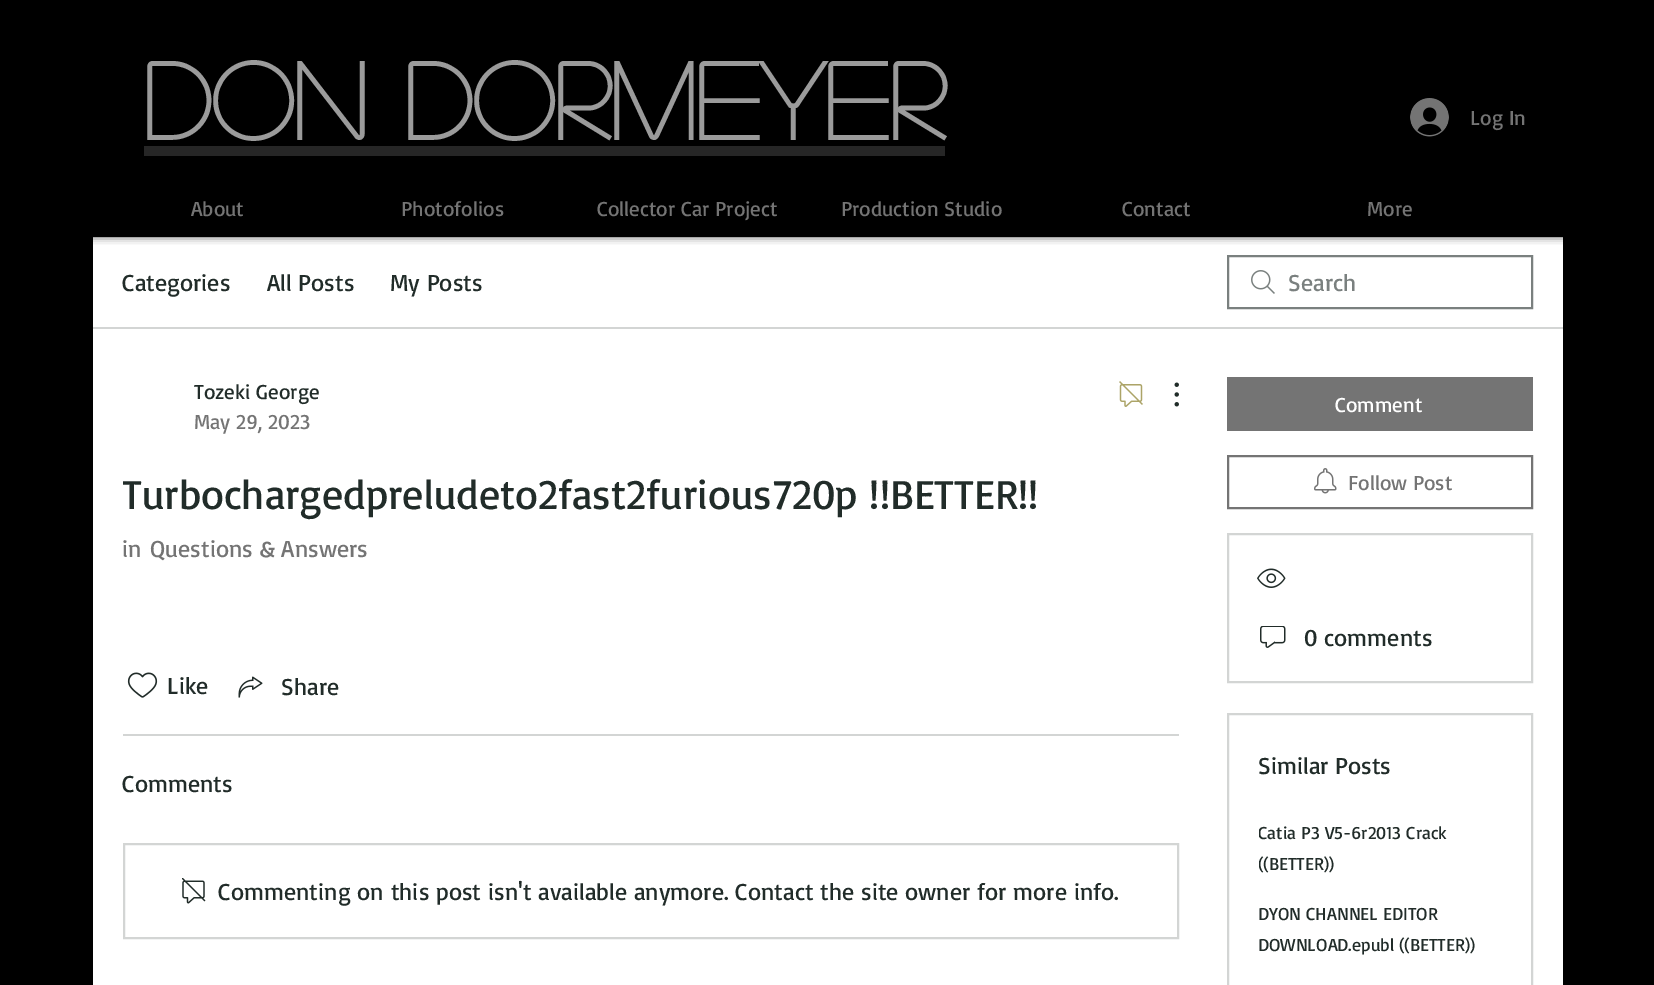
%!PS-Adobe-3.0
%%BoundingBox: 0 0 1654 985
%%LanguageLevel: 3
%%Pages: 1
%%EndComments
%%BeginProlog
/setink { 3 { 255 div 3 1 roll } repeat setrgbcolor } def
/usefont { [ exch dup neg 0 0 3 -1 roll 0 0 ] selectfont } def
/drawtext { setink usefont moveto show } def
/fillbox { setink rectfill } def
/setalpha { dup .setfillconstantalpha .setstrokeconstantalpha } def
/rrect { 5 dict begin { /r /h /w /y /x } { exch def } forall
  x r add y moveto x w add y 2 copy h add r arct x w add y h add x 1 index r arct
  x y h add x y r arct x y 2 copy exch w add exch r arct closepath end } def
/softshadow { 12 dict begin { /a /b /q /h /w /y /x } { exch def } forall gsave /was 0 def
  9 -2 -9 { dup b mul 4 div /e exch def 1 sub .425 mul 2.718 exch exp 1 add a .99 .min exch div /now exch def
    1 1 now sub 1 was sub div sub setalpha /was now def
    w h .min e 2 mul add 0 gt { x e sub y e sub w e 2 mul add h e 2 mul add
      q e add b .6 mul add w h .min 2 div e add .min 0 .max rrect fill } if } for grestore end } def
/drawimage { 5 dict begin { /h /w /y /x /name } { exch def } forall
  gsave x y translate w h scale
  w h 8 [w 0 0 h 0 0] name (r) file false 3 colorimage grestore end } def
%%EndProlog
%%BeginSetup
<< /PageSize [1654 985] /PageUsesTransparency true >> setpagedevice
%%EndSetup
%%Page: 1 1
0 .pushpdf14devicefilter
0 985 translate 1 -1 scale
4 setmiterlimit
0 0 1654 985 0 0 0 fillbox
93 237 1470 748 255 255 255 fillbox
gsave
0 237 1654 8 rectclip
0 0 0 setink
0 0 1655 237 0 4 0.7 softshadow
grestore
(Don Dormeyer) 143 140 /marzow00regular-Bold 108 155 155 155 drawtext
144 146 801 10 38 38 38 fillbox
(assets/img1.rgb) 1410 98 39 39 drawimage
(Log In) 1470 125 /Basic-Regular 21 116 116 116 drawtext
(About) 191 216 /Basic-Regular 21 116 116 116 drawtext
(Photofolios) 401 216 /Basic-Regular 21 116 116 116 drawtext
(Collector Car Project) 597 216 /Basic-Regular 21 116 116 116 drawtext
(Production Studio) 841 216 /Basic-Regular 21 116 116 116 drawtext
(Contact) 1122 216 /Basic-Regular 21 116 116 116 drawtext
(More) 1367 216 /Basic-Regular 21 116 116 116 drawtext
93 327 1470 2 211 213 212 fillbox
(Categories) 122 291 /Basic-Regular 24 33 44 41 drawtext
(All Posts) 267 291 /Basic-Regular 24 33 44 41 drawtext
(My Posts) 390 291 /Basic-Regular 24 33 44 41 drawtext
(assets/img2.rgb) 1251 270 24 24 drawimage
122 128 127 setink
2 setlinewidth
1228 256 304 52 rectstroke
(Search) 1288 291 /Basic-Regular 24 122 128 127 drawtext
(Tozeki George) 194 399 /Basic-Regular 21 33 44 41 drawtext
(May 29, 2023) 194 429 /Basic-Regular 21 116 116 116 drawtext
(assets/img3.rgb) 1119 381 24 26 drawimage
(assets/img4.rgb) 1174 382 5 25 drawimage
gsave
123 467 915 54 rectclip
(Turbochargedpreludeto2fast2furious720p !!BETTER!!) 122 509 /Basic-Regular 42 33 44 41 drawtext
grestore
(in) 122 557 /Basic-Regular 24 116 116 116 drawtext
(Questions & Answers) 150 557 /Basic-Regular 24 116 116 116 drawtext
(assets/img5.rgb) 127 672 31 26 drawimage
(Like) 167 694 /Basic-Regular 24 33 44 41 drawtext
(assets/img6.rgb) 238 676 25 22 drawimage
(Share) 281 695 /Basic-Regular 24 33 44 41 drawtext
123 734 1056 2 211 213 212 fillbox
(Comments) 122 792 /Basic-Regular 24 33 44 41 drawtext
211 213 212 setink
124 844 1054 94 rectstroke
(assets/img7.rgb) 182 878 24 26 drawimage
(Commenting on this post isn't available anymore. Contact the site owner for more info.) 218 900 /Basic-Regular 24 33 44 41 drawtext
1227 377 306 54 116 116 116 fillbox
(Comment) 1335 412 /Basic-Regular 21 255 255 255 drawtext
116 116 116 setink
1228 456 304 52 rectstroke
(assets/img8.rgb) 1314 468 23 26 drawimage
(Follow Post) 1348 490 /Basic-Regular 21 116 116 116 drawtext
211 213 212 setink
1228 534 304 148 rectstroke
(assets/img9.rgb) 1257 568 29 20 drawimage
(assets/img10.rgb) 1260 626 26 22 drawimage
(0 comments) 1304 646 /Basic-Regular 24 33 44 41 drawtext
211 213 212 setink
1228 714 304 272 rectstroke
(Similar Posts) 1258 774 /Basic-Regular 24 33 44 41 drawtext
gsave
1259 816 243 63 rectclip
(Catia P3 V5-6r2013 Crack) 1258 839 /Basic-Regular 18 33 44 41 drawtext
(\(\(BETTER\)\)) 1258 870 /Basic-Regular 18 33 44 41 drawtext
grestore
(DYON CHANNEL EDITOR) 1258 920 /Basic-Regular 18 33 44 41 drawtext
(DOWNLOAD.epubl \(\(BETTER\)\)) 1258 951 /Basic-Regular 18 33 44 41 drawtext
.poppdf14devicefilter showpage
%%EOF
